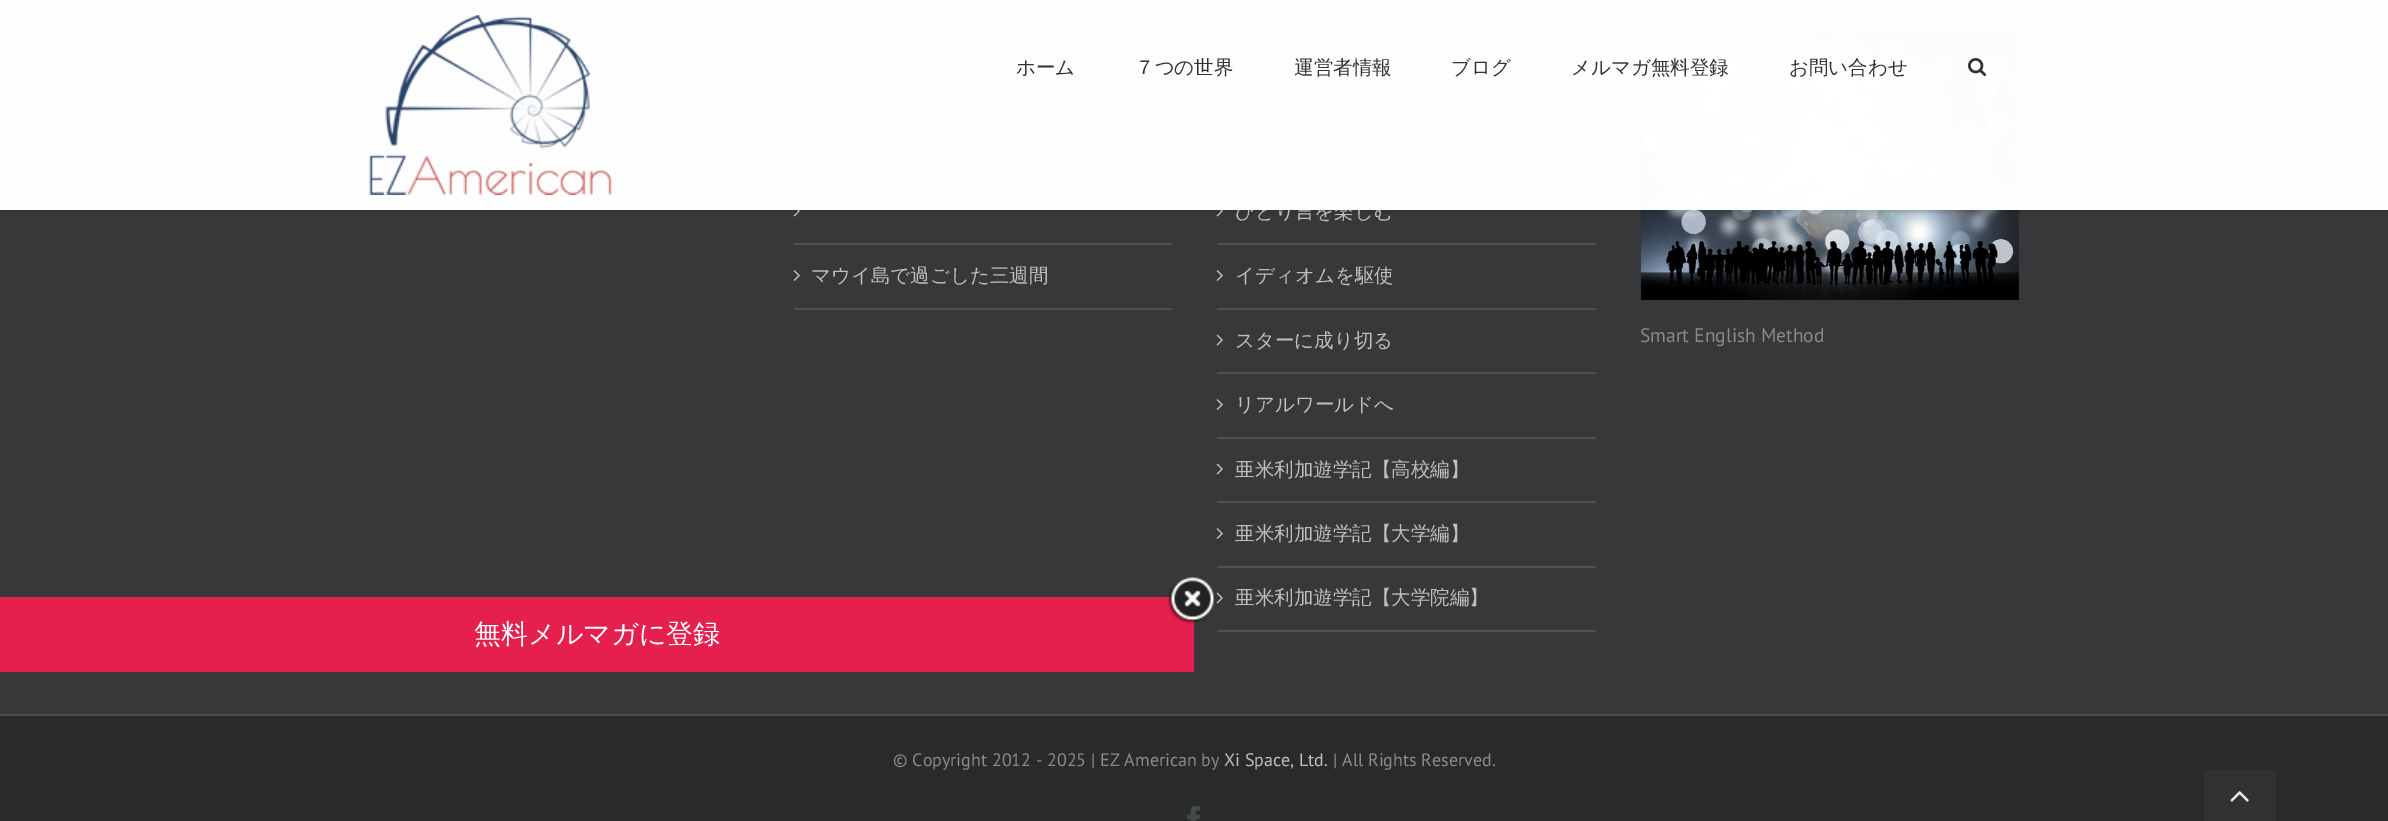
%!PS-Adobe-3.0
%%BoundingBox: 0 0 2388 821
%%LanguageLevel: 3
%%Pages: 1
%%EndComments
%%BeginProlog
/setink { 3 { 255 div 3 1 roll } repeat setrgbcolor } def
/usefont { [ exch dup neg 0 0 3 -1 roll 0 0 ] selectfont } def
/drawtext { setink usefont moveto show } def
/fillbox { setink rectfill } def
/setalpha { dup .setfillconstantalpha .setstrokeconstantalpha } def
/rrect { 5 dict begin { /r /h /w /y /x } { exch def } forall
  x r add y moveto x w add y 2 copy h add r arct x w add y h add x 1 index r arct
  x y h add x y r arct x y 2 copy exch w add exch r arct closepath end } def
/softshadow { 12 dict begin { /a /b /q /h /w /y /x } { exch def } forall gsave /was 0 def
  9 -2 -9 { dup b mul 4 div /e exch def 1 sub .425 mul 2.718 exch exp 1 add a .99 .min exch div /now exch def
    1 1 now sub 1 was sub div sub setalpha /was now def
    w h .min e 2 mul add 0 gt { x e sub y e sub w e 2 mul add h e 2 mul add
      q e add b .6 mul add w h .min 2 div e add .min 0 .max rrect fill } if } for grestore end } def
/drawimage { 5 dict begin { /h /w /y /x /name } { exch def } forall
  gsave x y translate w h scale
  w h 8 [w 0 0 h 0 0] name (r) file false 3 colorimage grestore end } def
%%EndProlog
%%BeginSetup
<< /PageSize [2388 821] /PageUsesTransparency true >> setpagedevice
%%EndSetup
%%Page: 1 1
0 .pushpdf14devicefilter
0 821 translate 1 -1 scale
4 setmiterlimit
0 0 2388 821 54 56 57 fillbox
0 597 1194 75 229 32 78 fillbox
(assets/img1.rgb) 1167 577 47 47 drawimage
(無料メルマガに登録) 474 643 /WenQuanYiZenHei-Medium 27 255 255 255 drawtext
794 50 378 2 80 81 82 fillbox
(assets/img4.rgb) 793 12 7 11 drawimage
794 114 378 2 80 81 82 fillbox
(assets/img5.rgb) 793 76 7 12 drawimage
794 179 378 2 80 81 82 fillbox
(assets/img4.rgb) 793 141 7 11 drawimage
(assets/img5.rgb) 793 205 7 12 drawimage
1217 50 379 2 80 81 82 fillbox
(assets/img4.rgb) 1216 12 7 11 drawimage
1217 114 379 2 80 81 82 fillbox
(assets/img5.rgb) 1216 76 7 12 drawimage
1217 179 379 2 80 81 82 fillbox
(assets/img4.rgb) 1216 141 7 11 drawimage
(assets/img5.rgb) 1216 205 7 12 drawimage
(assets/img6.rgb) 1640 33 379 267 drawimage
gsave
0 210 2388 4 rectclip
0 0 0 setink
0 2 2388 210 0 2 0.12 softshadow
grestore
(ひとり言を楽しむ) 1235 218 /WenQuanYiZenHei-Medium 19.5 191 191 191 drawtext
0.99 setalpha
0 0 2388 210 255 255 255 fillbox
1 setalpha
(assets/img2.rgb) 369 15 243 180 drawimage
(ホーム) 1016 74 /WenQuanYiZenHei-Medium 19.5 51 51 51 drawtext
(７つの世界) 1135 74 /WenQuanYiZenHei-Medium 19.5 51 51 51 drawtext
gsave
1295 0 157 129 rectclip
(運営者情報) 1294 74 /WenQuanYiZenHei-Medium 19.5 51 51 51 drawtext
grestore
(ブログ) 1451 74 /WenQuanYiZenHei-Medium 19.5 51 51 51 drawtext
(メルマガ無料登録) 1571 74 /WenQuanYiZenHei-Medium 19.5 51 51 51 drawtext
(お問い合わせ) 1789 74 /WenQuanYiZenHei-Medium 19.5 51 51 51 drawtext
(assets/img3.rgb) 1968 58 19 19 drawimage
794 243 378 2 80 81 82 fillbox
794 308 378 2 80 81 82 fillbox
(assets/img4.rgb) 793 270 7 11 drawimage
(マウイ島で過ごした三週間) 811 282 /WenQuanYiZenHei-Medium 19.5 191 191 191 drawtext
1217 243 379 2 80 81 82 fillbox
1217 308 379 2 80 81 82 fillbox
(assets/img4.rgb) 1216 270 7 11 drawimage
(イディオムを駆使) 1235 282 /WenQuanYiZenHei-Medium 19.5 191 191 191 drawtext
1217 372 379 2 80 81 82 fillbox
(assets/img5.rgb) 1216 334 7 12 drawimage
(スターに成り切る) 1235 347 /WenQuanYiZenHei-Medium 19.5 191 191 191 drawtext
1217 437 379 2 80 81 82 fillbox
(assets/img4.rgb) 1216 399 7 11 drawimage
(リアルワールドへ) 1235 411 /WenQuanYiZenHei-Medium 19.5 191 191 191 drawtext
1217 501 379 2 80 81 82 fillbox
(assets/img5.rgb) 1216 463 7 12 drawimage
(亜米利加遊学記【高校編】) 1235 476 /WenQuanYiZenHei-Medium 19.5 191 191 191 drawtext
1217 566 379 2 80 81 82 fillbox
(assets/img4.rgb) 1216 528 7 11 drawimage
(亜米利加遊学記【大学編】) 1235 540 /WenQuanYiZenHei-Medium 19.5 191 191 191 drawtext
1217 630 379 2 80 81 82 fillbox
(assets/img5.rgb) 1216 592 7 12 drawimage
(亜米利加遊学記【大学院編】) 1235 604 /WenQuanYiZenHei-Medium 19.5 191 191 191 drawtext
(Smart English Method) 1640 342 /PTSans-Regular 19.5 140 137 137 drawtext
0 716 2388 105 40 42 43 fillbox
0 714 2388 2 75 76 77 fillbox
(© Copyright 2012 - 2025 | EZ American by) 893 766 /PTSans-Regular 18 140 137 137 drawtext
(Xi Space, Ltd.) 1224 766 /PTSans-Regular 18 191 191 191 drawtext
(| All Rights Reserved.) 1333 766 /PTSans-Regular 18 140 137 137 drawtext
(assets/img7.rgb) 1187 806 13 15 drawimage
50 50 50 setink
2210 770 moveto 2270 770 lineto 2273.5 770 2276 772.5 2276 776 curveto 2276 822 lineto 2204 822 lineto 2204 776 lineto 2204 772.5 2206.5 770 2210 770 curveto closepath fill
(assets/img8.rgb) 2230 791 19 11 drawimage
.poppdf14devicefilter showpage
%%EOF
